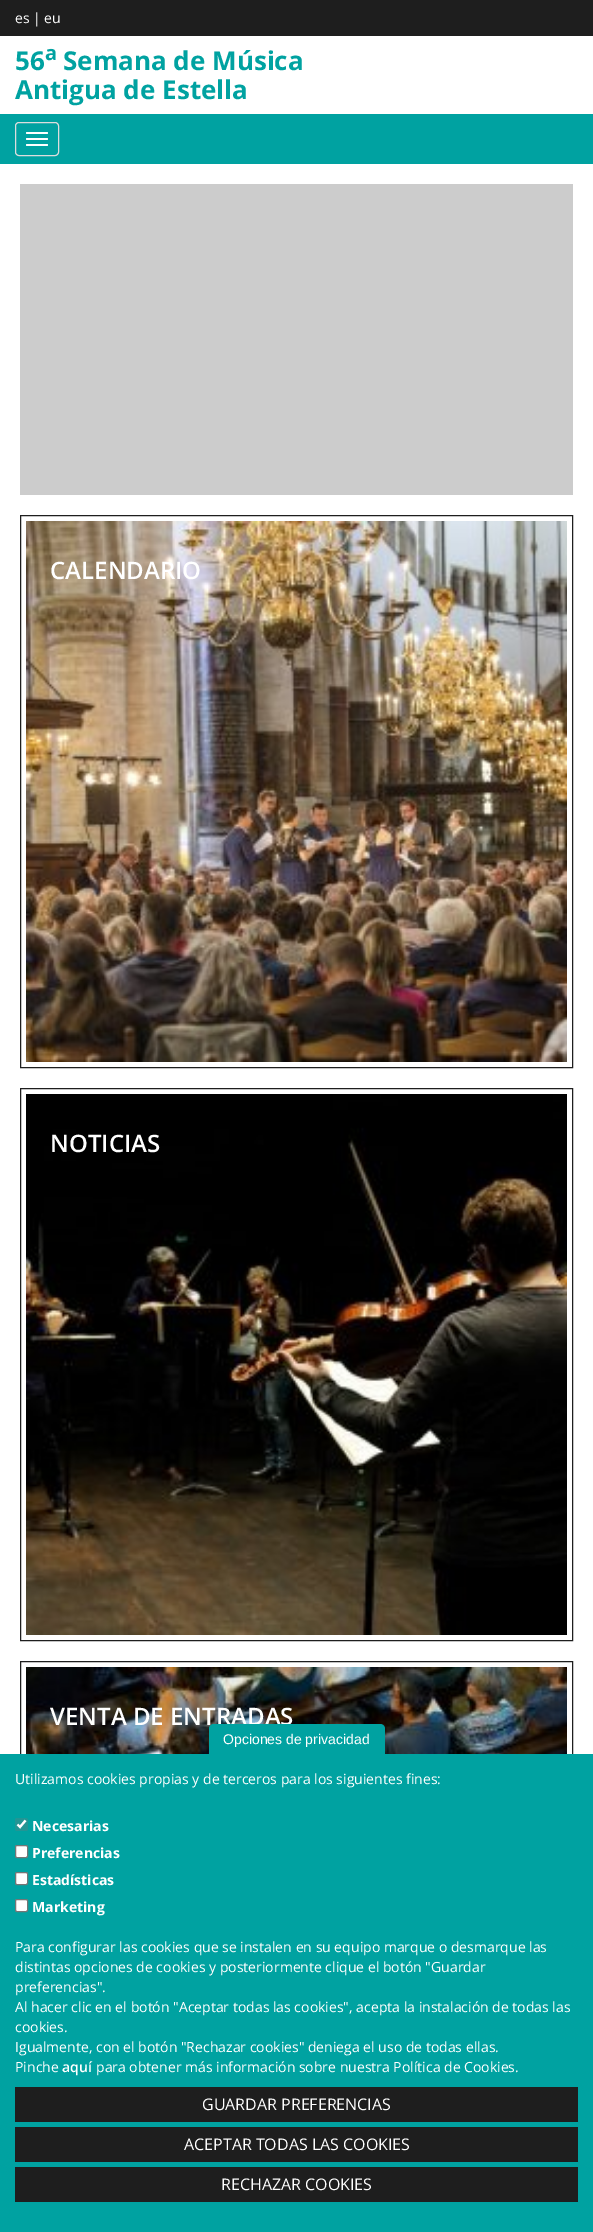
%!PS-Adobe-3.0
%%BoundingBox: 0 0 593 2232
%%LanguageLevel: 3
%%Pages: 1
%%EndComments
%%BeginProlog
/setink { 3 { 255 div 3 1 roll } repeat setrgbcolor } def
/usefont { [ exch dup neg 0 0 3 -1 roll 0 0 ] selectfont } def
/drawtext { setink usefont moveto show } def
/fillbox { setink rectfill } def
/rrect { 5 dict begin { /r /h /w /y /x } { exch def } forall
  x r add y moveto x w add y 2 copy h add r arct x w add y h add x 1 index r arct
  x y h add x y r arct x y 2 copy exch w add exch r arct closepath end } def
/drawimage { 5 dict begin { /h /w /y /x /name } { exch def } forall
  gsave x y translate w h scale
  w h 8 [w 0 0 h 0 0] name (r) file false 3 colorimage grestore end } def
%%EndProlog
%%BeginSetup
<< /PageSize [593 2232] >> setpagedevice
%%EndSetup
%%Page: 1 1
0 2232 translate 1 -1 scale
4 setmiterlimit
0 0 593 2232 255 255 255 fillbox
0 0 593 36 30 30 30 fillbox
(es | eu) 15 23 /OpenSans-Regular 14 255 255 255 drawtext
(56) 15 70 /OpenSans-Bold 26 0 162 161 drawtext
(a) 45 60 /OpenSans-Bold 20 0 162 161 drawtext
(Semana de Música) 63 70 /OpenSans-Bold 26 0 162 161 drawtext
(Antigua de Estella) 15 99 /OpenSans-Bold 26 0 162 161 drawtext
0 114 593 50 0 162 161 fillbox
221 221 221 setink
15.5 122.5 43 33 3.5 rrect stroke
255 255 255 setink
26 132 22 2 1 rrect fill
26 138 22 2 1 rrect fill
26 144 22 2 1 rrect fill
20 184 553 311 204 204 204 fillbox
30 30 30 setink
20.5 515.5 552 552 rectstroke
(assets/img1.rgb) 26 521 541 541 drawimage
(CALENDARIO) 50 579 /OpenSans-SemiBold 24 255 255 255 drawtext
30 30 30 setink
20.5 1088.5 552 552 rectstroke
(assets/img2.rgb) 26 1094 541 541 drawimage
(NOTICIAS) 50 1152 /OpenSans-SemiBold 24 255 255 255 drawtext
30 30 30 setink
20.5 1661.5 552 552 rectstroke
(assets/img3.rgb) 26 1667 541 87 drawimage
(VENTA DE ENTRADAS) 50 1725 /OpenSans-SemiBold 24 255 255 255 drawtext
0 162 161 setink
214 1724 moveto 380 1724 lineto 383 1724 385 1726 385 1729 curveto 385 1754 lineto 209 1754 lineto 209 1729 lineto 209 1726 211 1724 214 1724 curveto closepath fill
(Opciones de privacidad) 223 1744 /LiberationSans-Regular 14 255 255 255 drawtext
0 1754 593 478 0 162 161 fillbox
(Utilizamos cookies propias y de terceros para los siguientes fines:) 15 1784 /OpenSans-Regular 14 255 255 255 drawtext
35 149 148 setink
15 1818 13 13 2 rrect fill
255 255 255 setink
2.1 setlinewidth
17.5 1824.5 moveto 20 1827 lineto 25.5 1820.5 lineto stroke
(Necesarias) 32 1831 /OpenSans-Bold 14 255 255 255 drawtext
15.5 1845.5 12 12 1.5 rrect gsave fill grestore
118 118 118 setink
1 setlinewidth
stroke
(Preferencias) 32 1858 /OpenSans-Bold 14 255 255 255 drawtext
15.5 1872.5 12 12 1.5 rrect gsave fill grestore
118 118 118 setink
stroke
(Estadísticas) 32 1885 /OpenSans-Bold 14 255 255 255 drawtext
15.5 1899.5 12 12 1.5 rrect gsave fill grestore
118 118 118 setink
stroke
(Marketing) 32 1912 /OpenSans-Bold 14 255 255 255 drawtext
(Para configurar las cookies que se instalen en su equipo marque o desmarque las) 15 1952 /OpenSans-Regular 14 255 255 255 drawtext
(distintas opciones de cookies y posteriormente clique el botón "Guardar) 15 1972 /OpenSans-Regular 14 255 255 255 drawtext
(preferencias".) 15 1992 /OpenSans-Regular 14 255 255 255 drawtext
(Al hacer clic en el botón "Aceptar todas las cookies", acepta la instalación de todas las) 15 2012 /OpenSans-Regular 14 255 255 255 drawtext
(cookies.) 15 2032 /OpenSans-Regular 14 255 255 255 drawtext
(Igualmente, con el botón "Rechazar cookies" deniega el uso de todas ellas.) 15 2052 /OpenSans-Regular 14 255 255 255 drawtext
(Pinche) 15 2072 /OpenSans-Regular 14 255 255 255 drawtext
(aquí) 62 2072 /OpenSans-SemiBold 14 255 255 255 drawtext
(para obtener más información sobre nuestra Política de Cookies.) 96 2072 /OpenSans-Regular 14 255 255 255 drawtext
15 2087 563 35 30 30 30 fillbox
(GUARDAR PREFERENCIAS) 202 2110 /OpenSans-Regular 16 255 255 255 drawtext
15 2127 563 35 30 30 30 fillbox
(ACEPTAR TODAS LAS COOKIES) 184 2150 /OpenSans-Regular 16 255 255 255 drawtext
15 2167 563 35 30 30 30 fillbox
(RECHAZAR COOKIES) 221 2190 /OpenSans-Regular 16 255 255 255 drawtext
showpage
%%EOF
